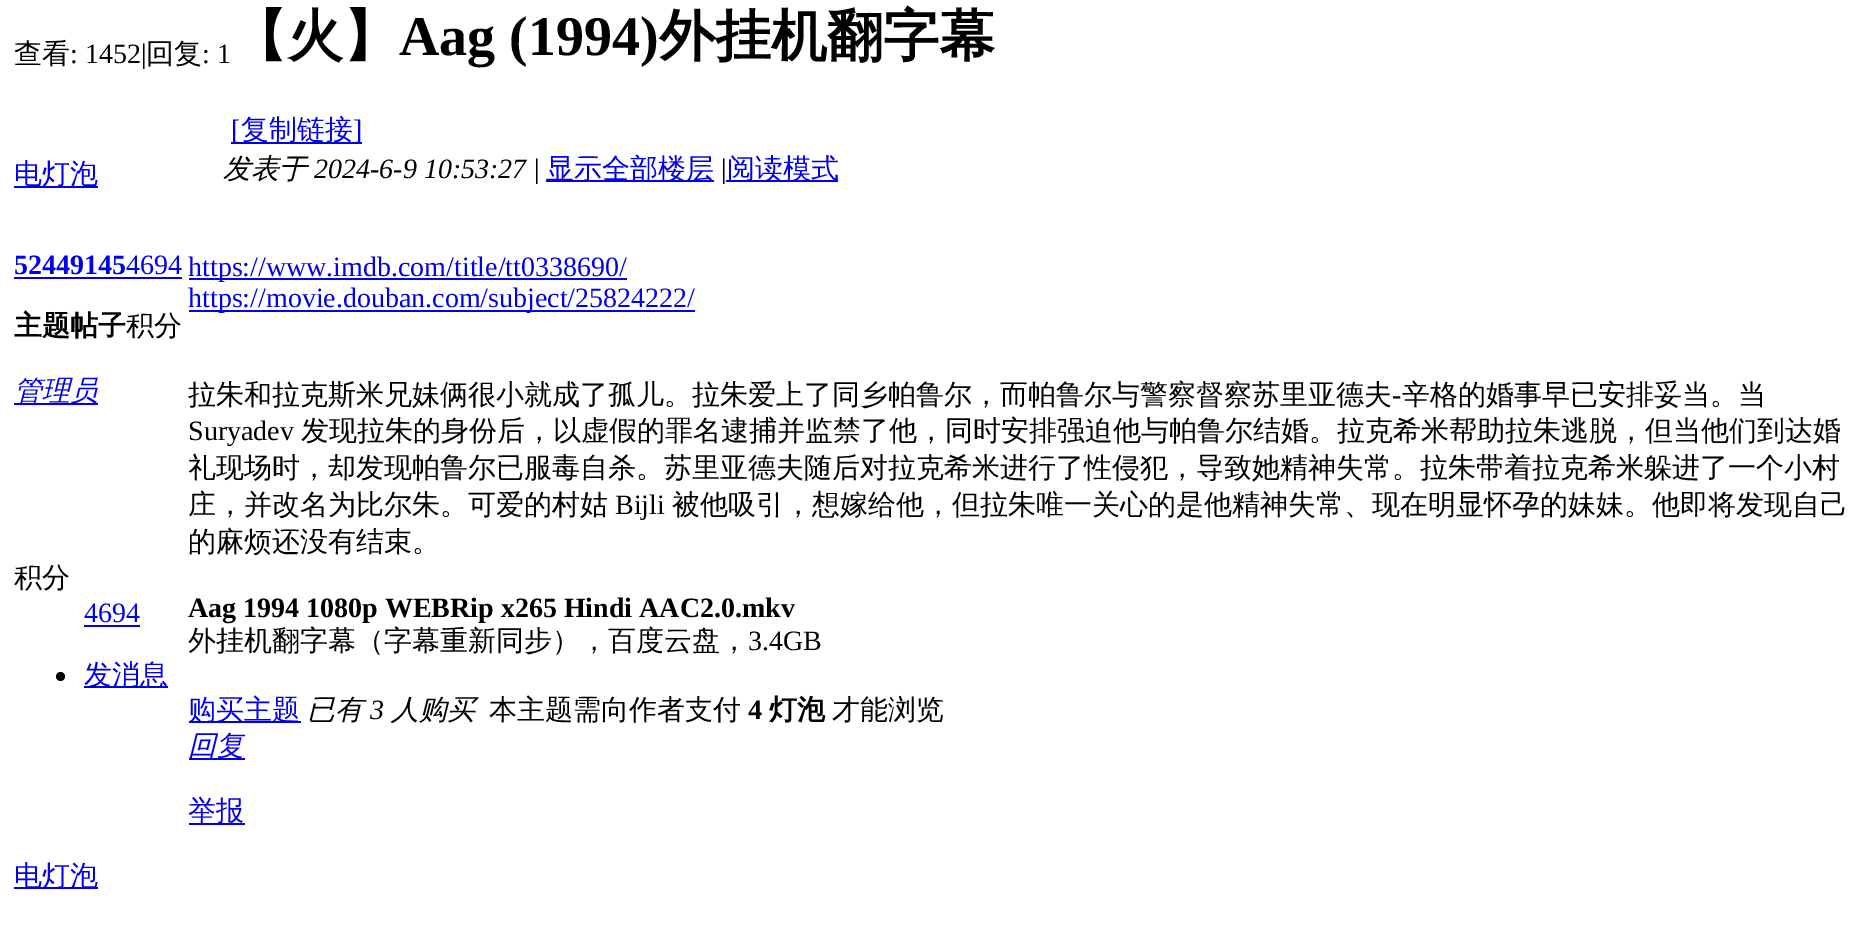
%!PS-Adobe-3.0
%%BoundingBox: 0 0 1869 951
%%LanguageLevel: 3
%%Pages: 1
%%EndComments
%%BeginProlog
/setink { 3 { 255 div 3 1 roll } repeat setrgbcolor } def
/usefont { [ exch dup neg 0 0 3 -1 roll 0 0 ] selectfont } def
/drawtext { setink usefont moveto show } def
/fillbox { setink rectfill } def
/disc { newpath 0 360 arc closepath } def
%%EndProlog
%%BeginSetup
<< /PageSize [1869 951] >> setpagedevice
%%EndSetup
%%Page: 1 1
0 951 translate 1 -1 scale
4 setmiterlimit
0 0 1869 951 255 255 255 fillbox
(查看) 14 63 /WenQuanYiZenHei-Medium 28 0 0 0 drawtext
(: 1452|) 70 63 /LiberationSerif-Regular 28 0 0 0 drawtext
(回复) 146 63 /WenQuanYiZenHei-Medium 28 0 0 0 drawtext
(: 1) 202 63 /LiberationSerif-Regular 28 0 0 0 drawtext
(【火】) 231 55 /WenQuanYiZenHei-Bold 56 0 0 0 drawtext
(Aag \(1994\)) 399 55 /LiberationSerif-Bold 56 0 0 0 drawtext
(外挂机翻字幕) 659 55 /WenQuanYiZenHei-Bold 56 0 0 0 drawtext
231 142 131 2 0 0 238 fillbox
([) 231 139 /LiberationSerif-Regular 28 0 0 238 drawtext
(复制链接) 241 139 /WenQuanYiZenHei-Medium 28 0 0 238 drawtext
(]) 353 139 /LiberationSerif-Regular 28 0 0 238 drawtext
14 186 84 2 0 0 238 fillbox
(电灯泡) 14 183 /WenQuanYiZenHei-Medium 28 0 0 238 drawtext
(52449145) 14 274 /LiberationSerif-Bold 28 0 0 238 drawtext
14 277 168 2 0 0 238 fillbox
(主题帖子) 14 335 /WenQuanYiZenHei-Bold 28 0 0 0 drawtext
(4694) 126 274 /LiberationSerif-Regular 28 0 0 238 drawtext
(积分) 126 335 /WenQuanYiZenHei-Medium 28 0 0 0 drawtext
14 403 84 2 0 0 238 fillbox
(管理员) 14 400 /WenQuanYiZenHei-MediumItalic 28 0 0 238 drawtext
(积分) 14 587 /WenQuanYiZenHei-Medium 28 0 0 0 drawtext
(4694) 84 622 /LiberationSerif-Regular 28 0 0 238 drawtext
84 625 56 2 0 0 238 fillbox
0 0 0 setink
60.5 676.5 4.5 disc fill
84 686 84 2 0 0 238 fillbox
(发消息) 84 684 /WenQuanYiZenHei-Medium 28 0 0 238 drawtext
(发表于) 223 178 /WenQuanYiZenHei-MediumItalic 28 0 0 0 drawtext
(2024-6-9 10:53:27) 314 178 /LiberationSerif-Italic 28 0 0 0 drawtext
(|) 534 178 /LiberationSerif-Regular 28 0 0 0 drawtext
546 180 168 2 0 0 238 fillbox
(显示全部楼层) 546 178 /WenQuanYiZenHei-Medium 28 0 0 238 drawtext
(|) 721 178 /LiberationSerif-Regular 28 0 0 0 drawtext
726 180 112 2 0 0 238 fillbox
(阅读模式) 727 178 /WenQuanYiZenHei-Medium 28 0 0 238 drawtext
189 278 438 2 0 0 238 fillbox
(https://www.imdb.com/title/tt0338690/) 188 276 /LiberationSerif-Regular 28 0 0 238 drawtext
189 310 506 2 0 0 238 fillbox
(https://movie.douban.com/subject/25824222/) 188 307 /LiberationSerif-Regular 28 0 0 238 drawtext
(拉朱和拉克斯米兄妹俩很小就成了孤儿。拉朱爱上了同乡帕鲁尔，而帕鲁尔与警察督察苏里亚德夫) 188 404 /WenQuanYiZenHei-Medium 28 0 0 0 drawtext
(-) 1392 404 /LiberationSerif-Regular 28 0 0 0 drawtext
(辛格的婚事早已安排妥当。当) 1402 404 /WenQuanYiZenHei-Medium 28 0 0 0 drawtext
(Suryadev) 188 440 /LiberationSerif-Regular 28 0 0 0 drawtext
(发现拉朱的身份后，以虚假的罪名逮捕并监禁了他，同时安排强迫他与帕鲁尔结婚。拉克希米帮助拉朱逃脱，但当他们到达婚) 301 440 /WenQuanYiZenHei-Medium 28 0 0 0 drawtext
(礼现场时，却发现帕鲁尔已服毒自杀。苏里亚德夫随后对拉克希米进行了性侵犯，导致她精神失常。拉朱带着拉克希米躲进了一个小村) 188 477 /WenQuanYiZenHei-Medium 28 0 0 0 drawtext
(庄，并改名为比尔朱。可爱的村姑) 188 514 /WenQuanYiZenHei-Medium 28 0 0 0 drawtext
(Bijli) 615 514 /LiberationSerif-Regular 28 0 0 0 drawtext
(被他吸引，想嫁给他，但拉朱唯一关心的是他精神失常、现在明显怀孕的妹妹。他即将发现自己) 672 514 /WenQuanYiZenHei-Medium 28 0 0 0 drawtext
(的麻烦还没有结束。) 188 551 /WenQuanYiZenHei-Medium 28 0 0 0 drawtext
(Aag 1994 1080p WEBRip x265 Hindi AAC2.0.mkv) 188 617 /LiberationSerif-Bold 28 0 0 0 drawtext
(外挂机翻字幕（字幕重新同步），百度云盘，) 188 650 /WenQuanYiZenHei-Medium 28 0 0 0 drawtext
(3.4GB) 748 650 /LiberationSerif-Regular 28 0 0 0 drawtext
189 721 112 2 0 0 238 fillbox
(购买主题) 188 719 /WenQuanYiZenHei-Medium 28 0 0 238 drawtext
(已有) 307 719 /WenQuanYiZenHei-MediumItalic 28 0 0 0 drawtext
(3) 370 719 /LiberationSerif-Italic 28 0 0 0 drawtext
(人购买) 391 719 /WenQuanYiZenHei-MediumItalic 28 0 0 0 drawtext
(本主题需向作者支付) 489 719 /WenQuanYiZenHei-Medium 28 0 0 0 drawtext
(4) 748 719 /LiberationSerif-Bold 28 0 0 0 drawtext
(灯泡) 769 719 /WenQuanYiZenHei-Bold 28 0 0 0 drawtext
(才能浏览) 832 719 /WenQuanYiZenHei-Medium 28 0 0 0 drawtext
189 758 56 2 0 0 238 fillbox
(回复) 188 755 /WenQuanYiZenHei-MediumItalic 28 0 0 238 drawtext
189 823 56 2 0 0 238 fillbox
(举报) 188 820 /WenQuanYiZenHei-Medium 28 0 0 238 drawtext
14 887 84 2 0 0 238 fillbox
(电灯泡) 14 885 /WenQuanYiZenHei-Medium 28 0 0 238 drawtext
showpage
%%EOF
